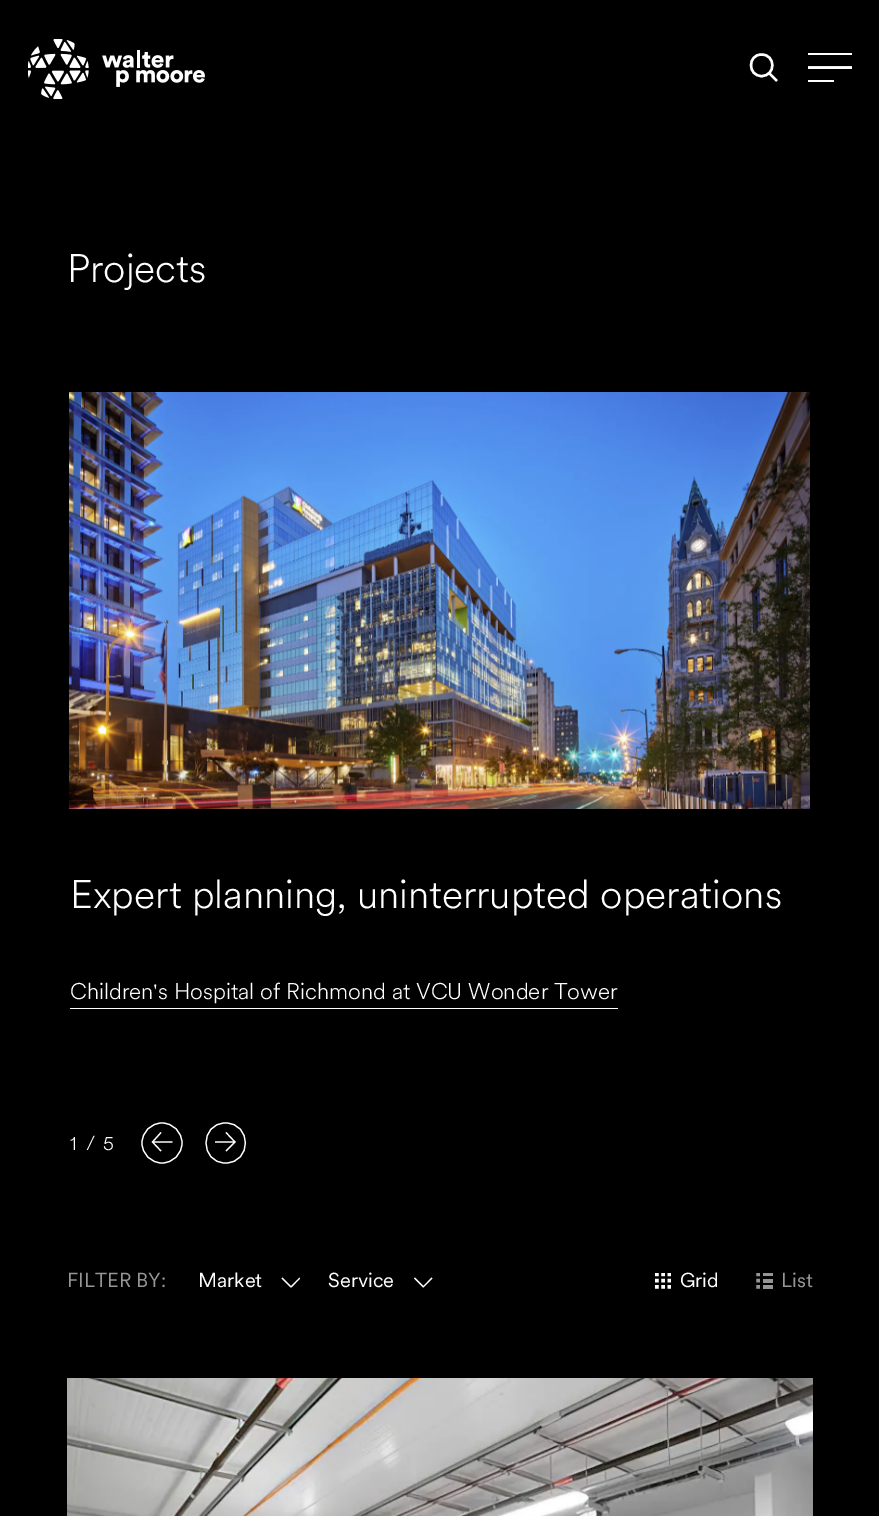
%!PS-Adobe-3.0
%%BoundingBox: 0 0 879 1516
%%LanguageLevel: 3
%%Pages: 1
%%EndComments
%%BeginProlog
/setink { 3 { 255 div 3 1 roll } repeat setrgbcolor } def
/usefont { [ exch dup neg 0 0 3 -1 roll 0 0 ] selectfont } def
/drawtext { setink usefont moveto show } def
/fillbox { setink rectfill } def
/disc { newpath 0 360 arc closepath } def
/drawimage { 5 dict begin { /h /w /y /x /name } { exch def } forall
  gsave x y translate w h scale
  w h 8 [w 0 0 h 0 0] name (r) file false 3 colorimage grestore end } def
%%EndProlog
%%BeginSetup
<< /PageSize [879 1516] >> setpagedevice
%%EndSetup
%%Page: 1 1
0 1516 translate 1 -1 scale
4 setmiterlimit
0 0 879 1516 0 0 0 fillbox
(assets/img1.rgb) 28 39 177 60 drawimage
255 255 255 setink
2.4 setlinewidth
761.5 76 moveto 776 76 776 54.5 761.5 54.5 curveto 747.5 54.5 747.5 76 761.5 76 curveto closepath 770 74 moveto 777 81 lineto stroke
808 53 44 2 255 255 255 fillbox
808 67.5 moveto 852 67.5 lineto stroke
808 80 26 2 255 255 255 fillbox
808 67.5 moveto 852 67.5 lineto stroke
(Projects) 67 282 /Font-Light 39.4 255 255 255 drawtext
(assets/img2.rgb) 69 392 741 417 drawimage
(Expert planning, uninterrupted operations) 70 908 /Font-Light 39.4 255 255 255 drawtext
(Children's Hospital of Richmond at VCU Wonder Tower) 70 999 /Font-Light 22.5 255 255 255 drawtext
70 1008 548 1 255 255 255 fillbox
(1) 70 1150 /Font-Light 20 255 255 255 drawtext
(/) 86 1150 /Font-Light 20 255 255 255 drawtext
(5) 103 1150 /Font-Light 20 255 255 255 drawtext
1.2 setlinewidth
162 1143 20 disc stroke
172.5 1142 moveto 152.5 1142 lineto 161 1132.5 moveto 152.5 1142 lineto 161 1151 lineto stroke
225.5 1123 moveto 199.5 1123 199.5 1163 225.5 1163 curveto 252 1163 252 1123 225.5 1123 curveto closepath 215 1142 moveto 235 1142 lineto 226 1132.5 moveto 235 1142 lineto 226 1151 lineto stroke
(FILTER BY:) 67 1287 /Font-Regular 20 149 149 149 drawtext
(Market) 198 1287 /Font-Regular 20 255 255 255 drawtext
290.5 1286.5 moveto 299.5 1277.5 lineto 300 1278.5 lineto 291.5 1287.5 lineto closepath fill
282.5 1277.5 moveto 291.5 1286.5 lineto 290.5 1287.5 lineto 281.5 1278.5 lineto closepath fill
(Service) 328 1287 /Font-Regular 20 255 255 255 drawtext
423 1286.5 moveto 431.5 1277.5 lineto 432.5 1278.5 lineto 423.5 1287.5 lineto closepath fill
415 1277.5 moveto 424 1286.5 lineto 423 1287.5 lineto 414 1278.5 lineto closepath fill
(assets/img3.rgb) 655 1273 16 16 drawimage
(Grid) 680 1287 /Font-Regular 20 255 255 255 drawtext
(assets/img4.rgb) 756 1273 17 16 drawimage
(List) 781 1287 /Font-Regular 20 149 149 149 drawtext
(assets/img5.rgb) 67 1378 746 138 drawimage
showpage
%%EOF
